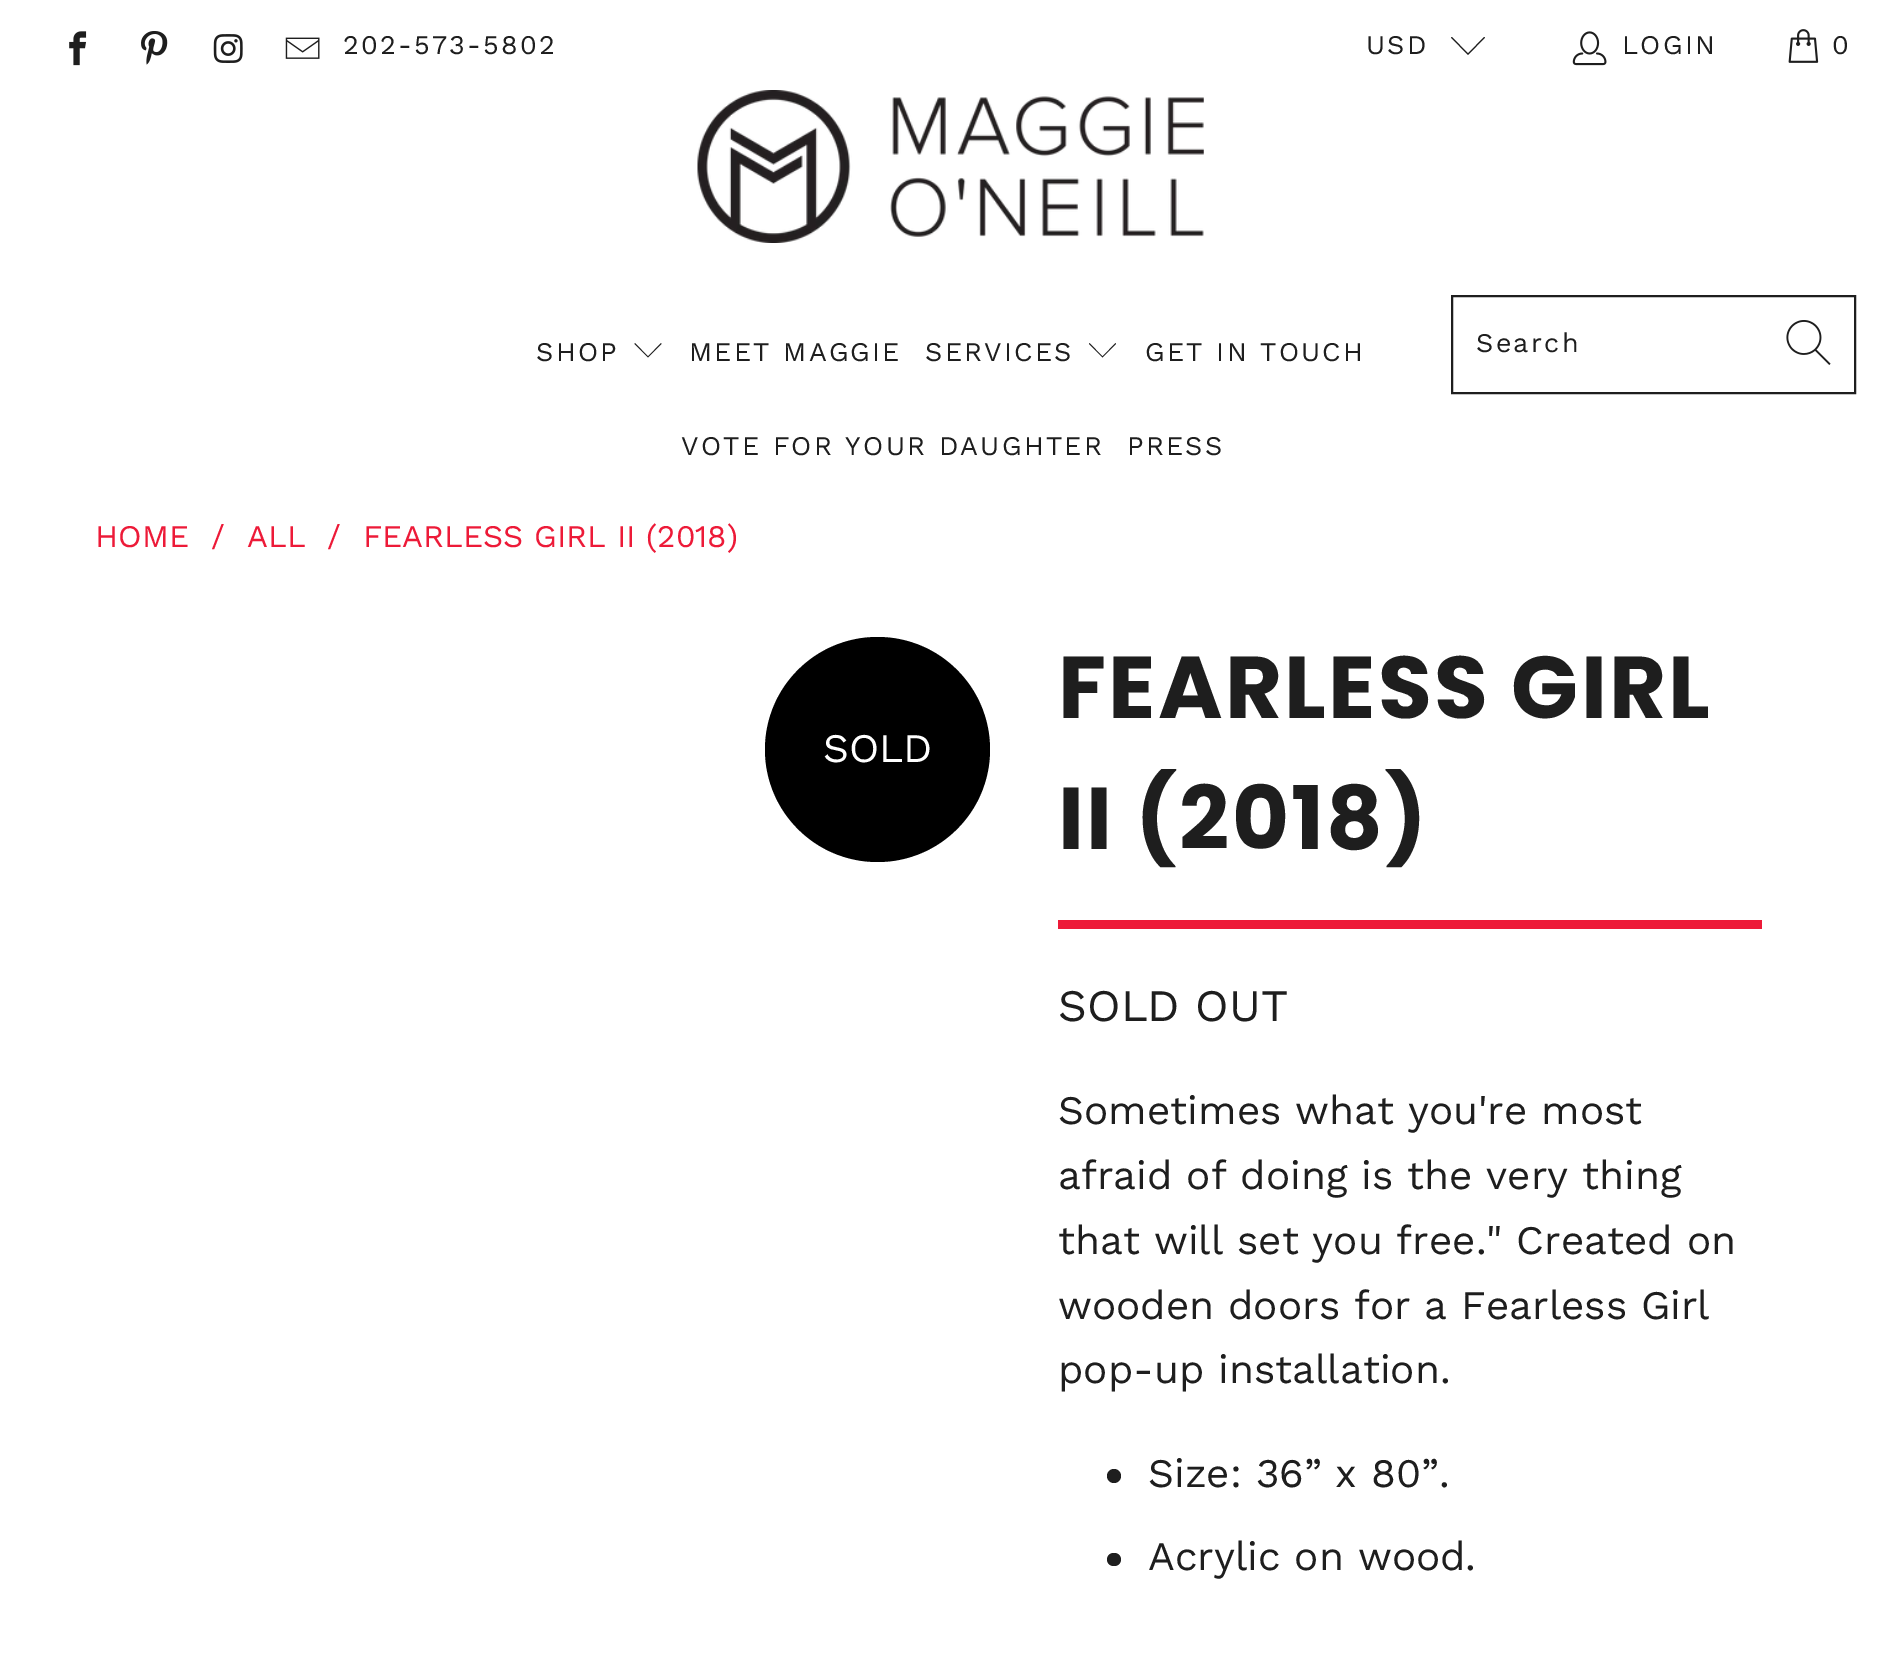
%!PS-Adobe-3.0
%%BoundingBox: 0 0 1900 1677
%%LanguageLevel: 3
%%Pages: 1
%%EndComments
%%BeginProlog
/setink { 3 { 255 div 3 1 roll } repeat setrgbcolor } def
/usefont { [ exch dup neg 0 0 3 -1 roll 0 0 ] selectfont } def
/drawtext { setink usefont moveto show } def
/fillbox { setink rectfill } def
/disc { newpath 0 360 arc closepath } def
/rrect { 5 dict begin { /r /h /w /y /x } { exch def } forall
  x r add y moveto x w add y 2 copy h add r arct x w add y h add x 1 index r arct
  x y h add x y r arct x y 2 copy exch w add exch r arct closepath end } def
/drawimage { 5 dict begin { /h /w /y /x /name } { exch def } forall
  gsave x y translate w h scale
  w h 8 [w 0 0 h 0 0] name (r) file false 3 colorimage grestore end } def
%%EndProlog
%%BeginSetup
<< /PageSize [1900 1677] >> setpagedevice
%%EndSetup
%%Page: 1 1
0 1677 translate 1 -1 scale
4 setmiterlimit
0 0 1900 1677 255 255 255 fillbox
(assets/img1.rgb) 69 31 18 35 drawimage
(assets/img2.rgb) 141 31 27 34 drawimage
(assets/img3.rgb) 213 34 30 29 drawimage
(assets/img4.rgb) 285 37 35 22 drawimage
/WorkSans-Regular 27 usefont
30 30 30 setink
343 54 moveto 2.25 0 (202-573-5802) ashow
1366 54 moveto 2.25 0 (USD) ashow
1468 55 moveto 1451 37.5 lineto 1452 37 lineto 1468 53.5 lineto 1484 37 lineto 1485 37.5 lineto closepath fill
(assets/img5.rgb) 1572 31 35 35 drawimage
1622 54 moveto 2.25 0 (LOGIN) ashow
(assets/img6.rgb) 1788 29 31 34 drawimage
1832 54 moveto 2.25 0 (0) ashow
(assets/img7.rgb) 697 90 507 153 drawimage
536 361 moveto 2.25 0 (SHOP) ashow
648 357.5 moveto 634.5 344 lineto 635 343 lineto 648 356.5 lineto 661 343 lineto 661.5 344 lineto closepath fill
689 361 moveto 2.25 0 (MEET MAGGIE) ashow
925 361 moveto 2.25 0 (SERVICES) ashow
1102.5 357.5 moveto 1089 344 lineto 1089.5 343 lineto 1102.5 356.5 lineto 1115.5 343 lineto 1116 344 lineto closepath fill
1145 361 moveto 2.25 0 (GET IN TOUCH) ashow
681 455 moveto 2.25 0 (VOTE FOR YOUR DAUGHTER) ashow
1127 455 moveto 2.25 0 (PRESS) ashow
2 setlinewidth
1452 296 403 97 rectstroke
1476 352 moveto 2.25 0 (Search) ashow
(assets/img8.rgb) 1786 320 45 45 drawimage
(HOME) 95 547 /WorkSans-Regular 31.5 237 26 56 drawtext
(/) 211 547 /WorkSans-Regular 31.5 237 26 56 drawtext
(ALL) 247 547 /WorkSans-Regular 31.5 237 26 56 drawtext
(/) 327 547 /WorkSans-Regular 31.5 237 26 56 drawtext
(FEARLESS GIRL II \(2018\)) 363 547 /WorkSans-Regular 31.5 237 26 56 drawtext
0 0 0 setink
877.5 749.5 112.5 disc fill
(SOLD) 823 762 /WorkSans-Regular 40.5 255 255 255 drawtext
/Poppins-Bold 87.75 usefont
30 30 30 setink
1058 718 moveto 2.25 0 (FEARLESS GIRL) ashow
1058 849 moveto 2.25 0 (II \(2018\)) ashow
1058 920 704 9 237 26 56 fillbox
(SOLD OUT) 1058 1021 /WorkSans-Regular 45 30 30 30 drawtext
(Sometimes what you're most) 1058 1124 /WorkSans-Regular 40.5 30 30 30 drawtext
(afraid of doing is the very thing) 1058 1189 /WorkSans-Regular 40.5 30 30 30 drawtext
(that will set you free." Created on) 1058 1254 /WorkSans-Regular 40.5 30 30 30 drawtext
(wooden doors for a Fearless Girl) 1058 1319 /WorkSans-Regular 40.5 30 30 30 drawtext
(pop-up installation.) 1058 1383 /WorkSans-Regular 40.5 30 30 30 drawtext
1114 1476 7 disc fill
(Size: 36” x 80”.) 1148 1487 /WorkSans-Regular 40.5 30 30 30 drawtext
1107 1553 14 13 6.5 rrect fill
(Acrylic on wood.) 1148 1570 /WorkSans-Regular 40.5 30 30 30 drawtext
showpage
%%EOF
